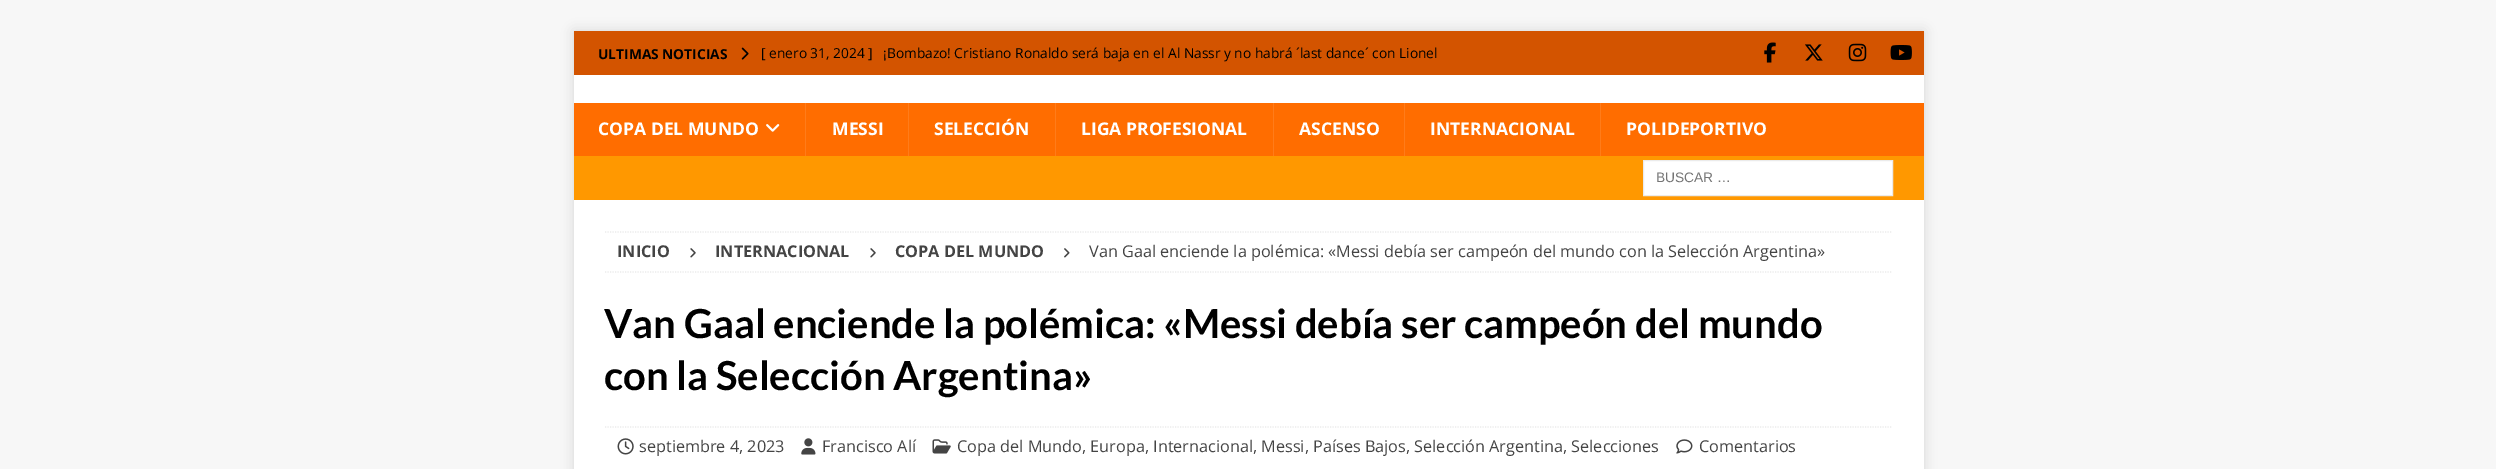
%!PS-Adobe-3.0
%%BoundingBox: 0 0 2496 469
%%LanguageLevel: 3
%%Pages: 1
%%EndComments
%%BeginProlog
/setink { 3 { 255 div 3 1 roll } repeat setrgbcolor } def
/usefont { [ exch dup neg 0 0 3 -1 roll 0 0 ] selectfont } def
/drawtext { setink usefont moveto show } def
/fillbox { setink rectfill } def
/setalpha { dup .setfillconstantalpha .setstrokeconstantalpha } def
/rrect { 5 dict begin { /r /h /w /y /x } { exch def } forall
  x r add y moveto x w add y 2 copy h add r arct x w add y h add x 1 index r arct
  x y h add x y r arct x y 2 copy exch w add exch r arct closepath end } def
/softshadow { 12 dict begin { /a /b /q /h /w /y /x } { exch def } forall gsave /was 0 def
  9 -2 -9 { dup b mul 4 div /e exch def 1 sub .425 mul 2.718 exch exp 1 add a .99 .min exch div /now exch def
    1 1 now sub 1 was sub div sub setalpha /was now def
    w h .min e 2 mul add 0 gt { x e sub y e sub w e 2 mul add h e 2 mul add
      q e add b .6 mul add w h .min 2 div e add .min 0 .max rrect fill } if } for grestore end } def
/drawimage { 5 dict begin { /h /w /y /x /name } { exch def } forall
  gsave x y translate w h scale
  w h 8 [w 0 0 h 0 0] name (r) file false 3 colorimage grestore end } def
%%EndProlog
%%BeginSetup
<< /PageSize [2496 469] /PageUsesTransparency true >> setpagedevice
%%EndSetup
%%Page: 1 1
0 .pushpdf14devicefilter
0 469 translate 1 -1 scale
4 setmiterlimit
0 0 2496 469 247 247 247 fillbox
50 50 50 setink
574 31 1350 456 0 6 0.17 softshadow
574 31 1350 44 211 84 0 fillbox
(ULTIMAS NOTICIAS) 598 59 /OpenSans-Bold 13.75 0 0 0 drawtext
(assets/img1.rgb) 741 47 8 13 drawimage
([ enero 31, 2024 ]) 761 58 /OpenSans-Regular 13.75 0 0 0 drawtext
(¡Bombazo! Cristiano Ronaldo será baja en el Al Nassr y no habrá ´last dance´ con Lionel) 883 58 /OpenSans-Regular 13.75 0 0 0 drawtext
(assets/img2.rgb) 1764 42 12 21 drawimage
(assets/img3.rgb) 1805 44 18 17 drawimage
(assets/img4.rgb) 1848 43 19 19 drawimage
(assets/img5.rgb) 1890 45 22 15 drawimage
574 75 1350 28 255 255 255 fillbox
574 103 1350 53 255 109 0 fillbox
(COPA DEL MUNDO) 598 135 /OpenSans-Bold 17.5 255 255 255 drawtext
(assets/img6.rgb) 766 124 14 8 drawimage
805 103 1 53 255 124 26 fillbox
(MESSI) 832 135 /OpenSans-Bold 17.5 255 255 255 drawtext
908 103 1 53 255 124 26 fillbox
(SELECCIÓN) 934 135 /OpenSans-Bold 17.5 255 255 255 drawtext
1055 103 1 53 255 124 26 fillbox
(LIGA PROFESIONAL) 1081 135 /OpenSans-Bold 17.5 255 255 255 drawtext
1273 103 1 53 255 124 26 fillbox
(ASCENSO) 1299 135 /OpenSans-Bold 17.5 255 255 255 drawtext
1404 103 1 53 255 124 26 fillbox
(INTERNACIONAL) 1430 135 /OpenSans-Bold 17.5 255 255 255 drawtext
1600 103 1 53 255 124 26 fillbox
(POLIDEPORTIVO) 1626 135 /OpenSans-Bold 17.5 255 255 255 drawtext
574 156 1350 44 255 152 0 fillbox
255 255 255 setink
1643.5 160.5 moveto 1892.5 160.5 lineto 1892.5 195.5 lineto 1643.5 195.5 lineto closepath gsave fill grestore
235 235 235 setink
stroke
(BUSCAR …) 1656 182 /LiberationSans-Regular 13.75 117 117 117 drawtext
574 200 1350 269 255 255 255 fillbox
235 235 235 setink
1.2 setlinewidth
[1.25 1.25] 0 setdash
605 232 moveto 1892.5 232 lineto stroke
605 272 moveto 1892.5 272 lineto stroke
(INICIO) 617 257 /OpenSans-Bold 16.25 68 68 68 drawtext
(assets/img7.rgb) 690 248 6 10 drawimage
(INTERNACIONAL) 715 257 /OpenSans-Bold 16.25 68 68 68 drawtext
(assets/img7.rgb) 870 248 6 10 drawimage
(COPA DEL MUNDO) 895 257 /OpenSans-Bold 16.25 68 68 68 drawtext
(assets/img8.rgb) 1064 248 6 10 drawimage
(Van Gaal enciende la polémica: «Messi debía ser campeón del mundo con la Selección Argentina») 1089 257 /OpenSans-Regular 16.25 68 68 68 drawtext
(Van Gaal enciende la polémica: «Messi debía ser campeón del mundo) 604 338 /Lato-Bold 40 0 0 0 drawtext
(con la Selección Argentina») 604 390 /Lato-Bold 40 0 0 0 drawtext
235 235 235 setink
605 427 moveto 1892.5 427 lineto stroke
(assets/img9.rgb) 617 438 17 17 drawimage
(septiembre 4, 2023) 639 452 /OpenSans-Regular 16.25 68 68 68 drawtext
(assets/img10.rgb) 801 438 15 17 drawimage
(Francisco Alí) 822 452 /OpenSans-Regular 16.25 68 68 68 drawtext
(assets/img11.rgb) 932 439 19 15 drawimage
(Copa del Mundo, Europa, Internacional, Messi, Países Bajos, Selección Argentina, Selecciones) 957 452 /OpenSans-Regular 16.25 68 68 68 drawtext
(assets/img12.rgb) 1676 439 17 15 drawimage
(Comentarios) 1699 452 /OpenSans-Regular 16.25 68 68 68 drawtext
.poppdf14devicefilter showpage
%%EOF
